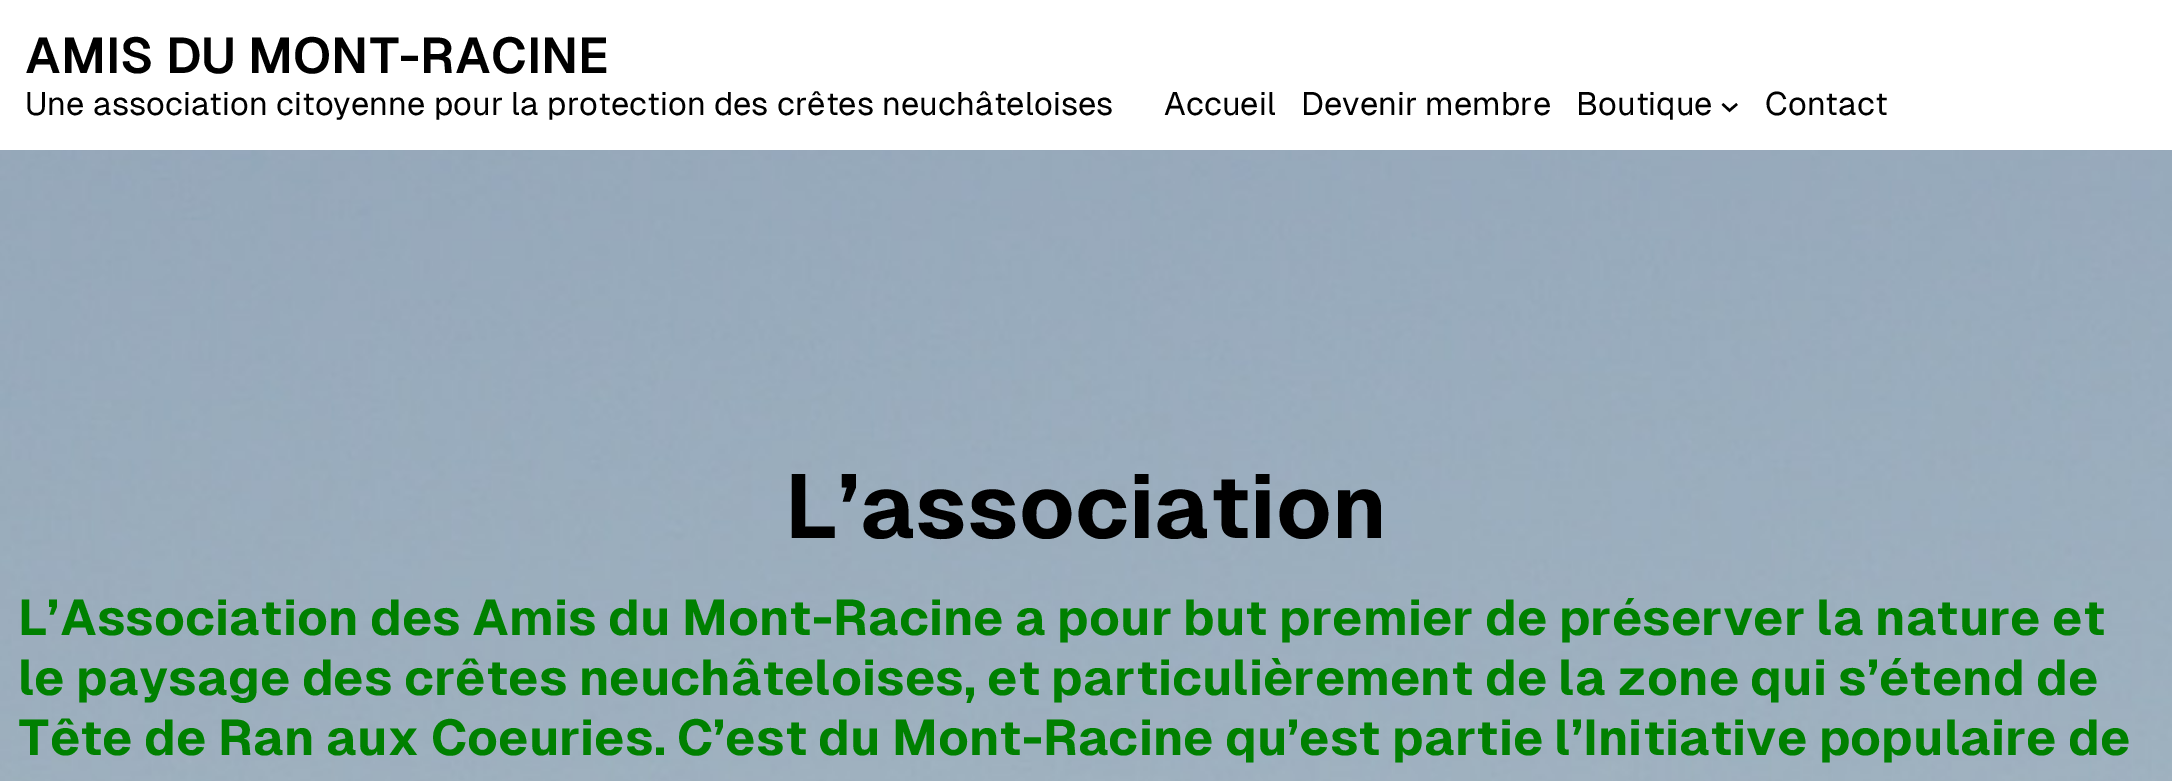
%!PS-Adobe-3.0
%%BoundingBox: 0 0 2172 781
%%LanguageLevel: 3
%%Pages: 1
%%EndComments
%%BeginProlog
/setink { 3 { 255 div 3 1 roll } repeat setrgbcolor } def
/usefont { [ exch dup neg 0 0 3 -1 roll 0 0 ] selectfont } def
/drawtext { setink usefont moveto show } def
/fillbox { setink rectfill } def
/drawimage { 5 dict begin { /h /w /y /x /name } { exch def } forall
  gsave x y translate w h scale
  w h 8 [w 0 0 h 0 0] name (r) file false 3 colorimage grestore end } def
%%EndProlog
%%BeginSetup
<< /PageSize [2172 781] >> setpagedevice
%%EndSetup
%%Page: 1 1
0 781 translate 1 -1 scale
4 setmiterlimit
0 0 2172 781 255 255 255 fillbox
(assets/img1.rgb) 0 150 2172 631 drawimage
(AMIS DU MONT-RACINE) 25 73 /Geist-SemiBold 50 0 0 0 drawtext
(Une association citoyenne pour la protection des crêtes neuchâteloises) 25 115 /Geist-Regular 32.5 0 0 0 drawtext
(Accueil) 1164 115 /Geist-Regular 32.5 0 0 0 drawtext
(Devenir membre) 1301 115 /Geist-Regular 32.5 0 0 0 drawtext
(Boutique) 1576 115 /Geist-Regular 32.5 0 0 0 drawtext
2.4 setlinewidth
1722.5 104 moveto 1729.5 110.5 lineto 1737 104 lineto stroke
(Contact) 1765 115 /Geist-Regular 32.5 0 0 0 drawtext
(L’association) 785 538 /Geist-Bold 90 0 0 0 drawtext
(L’Association des Amis du Mont-Racine a pour but premier de préserver la nature et) 18 635 /Geist-Bold 50 0 128 0 drawtext
(le paysage des crêtes neuchâteloises, et particulièrement de la zone qui s’étend de) 18 695 /Geist-Bold 50 0 128 0 drawtext
(Tête de Ran aux Coeuries. C’est du Mont-Racine qu’est partie l’Initiative populaire de) 18 755 /Geist-Bold 50 0 128 0 drawtext
showpage
%%EOF
